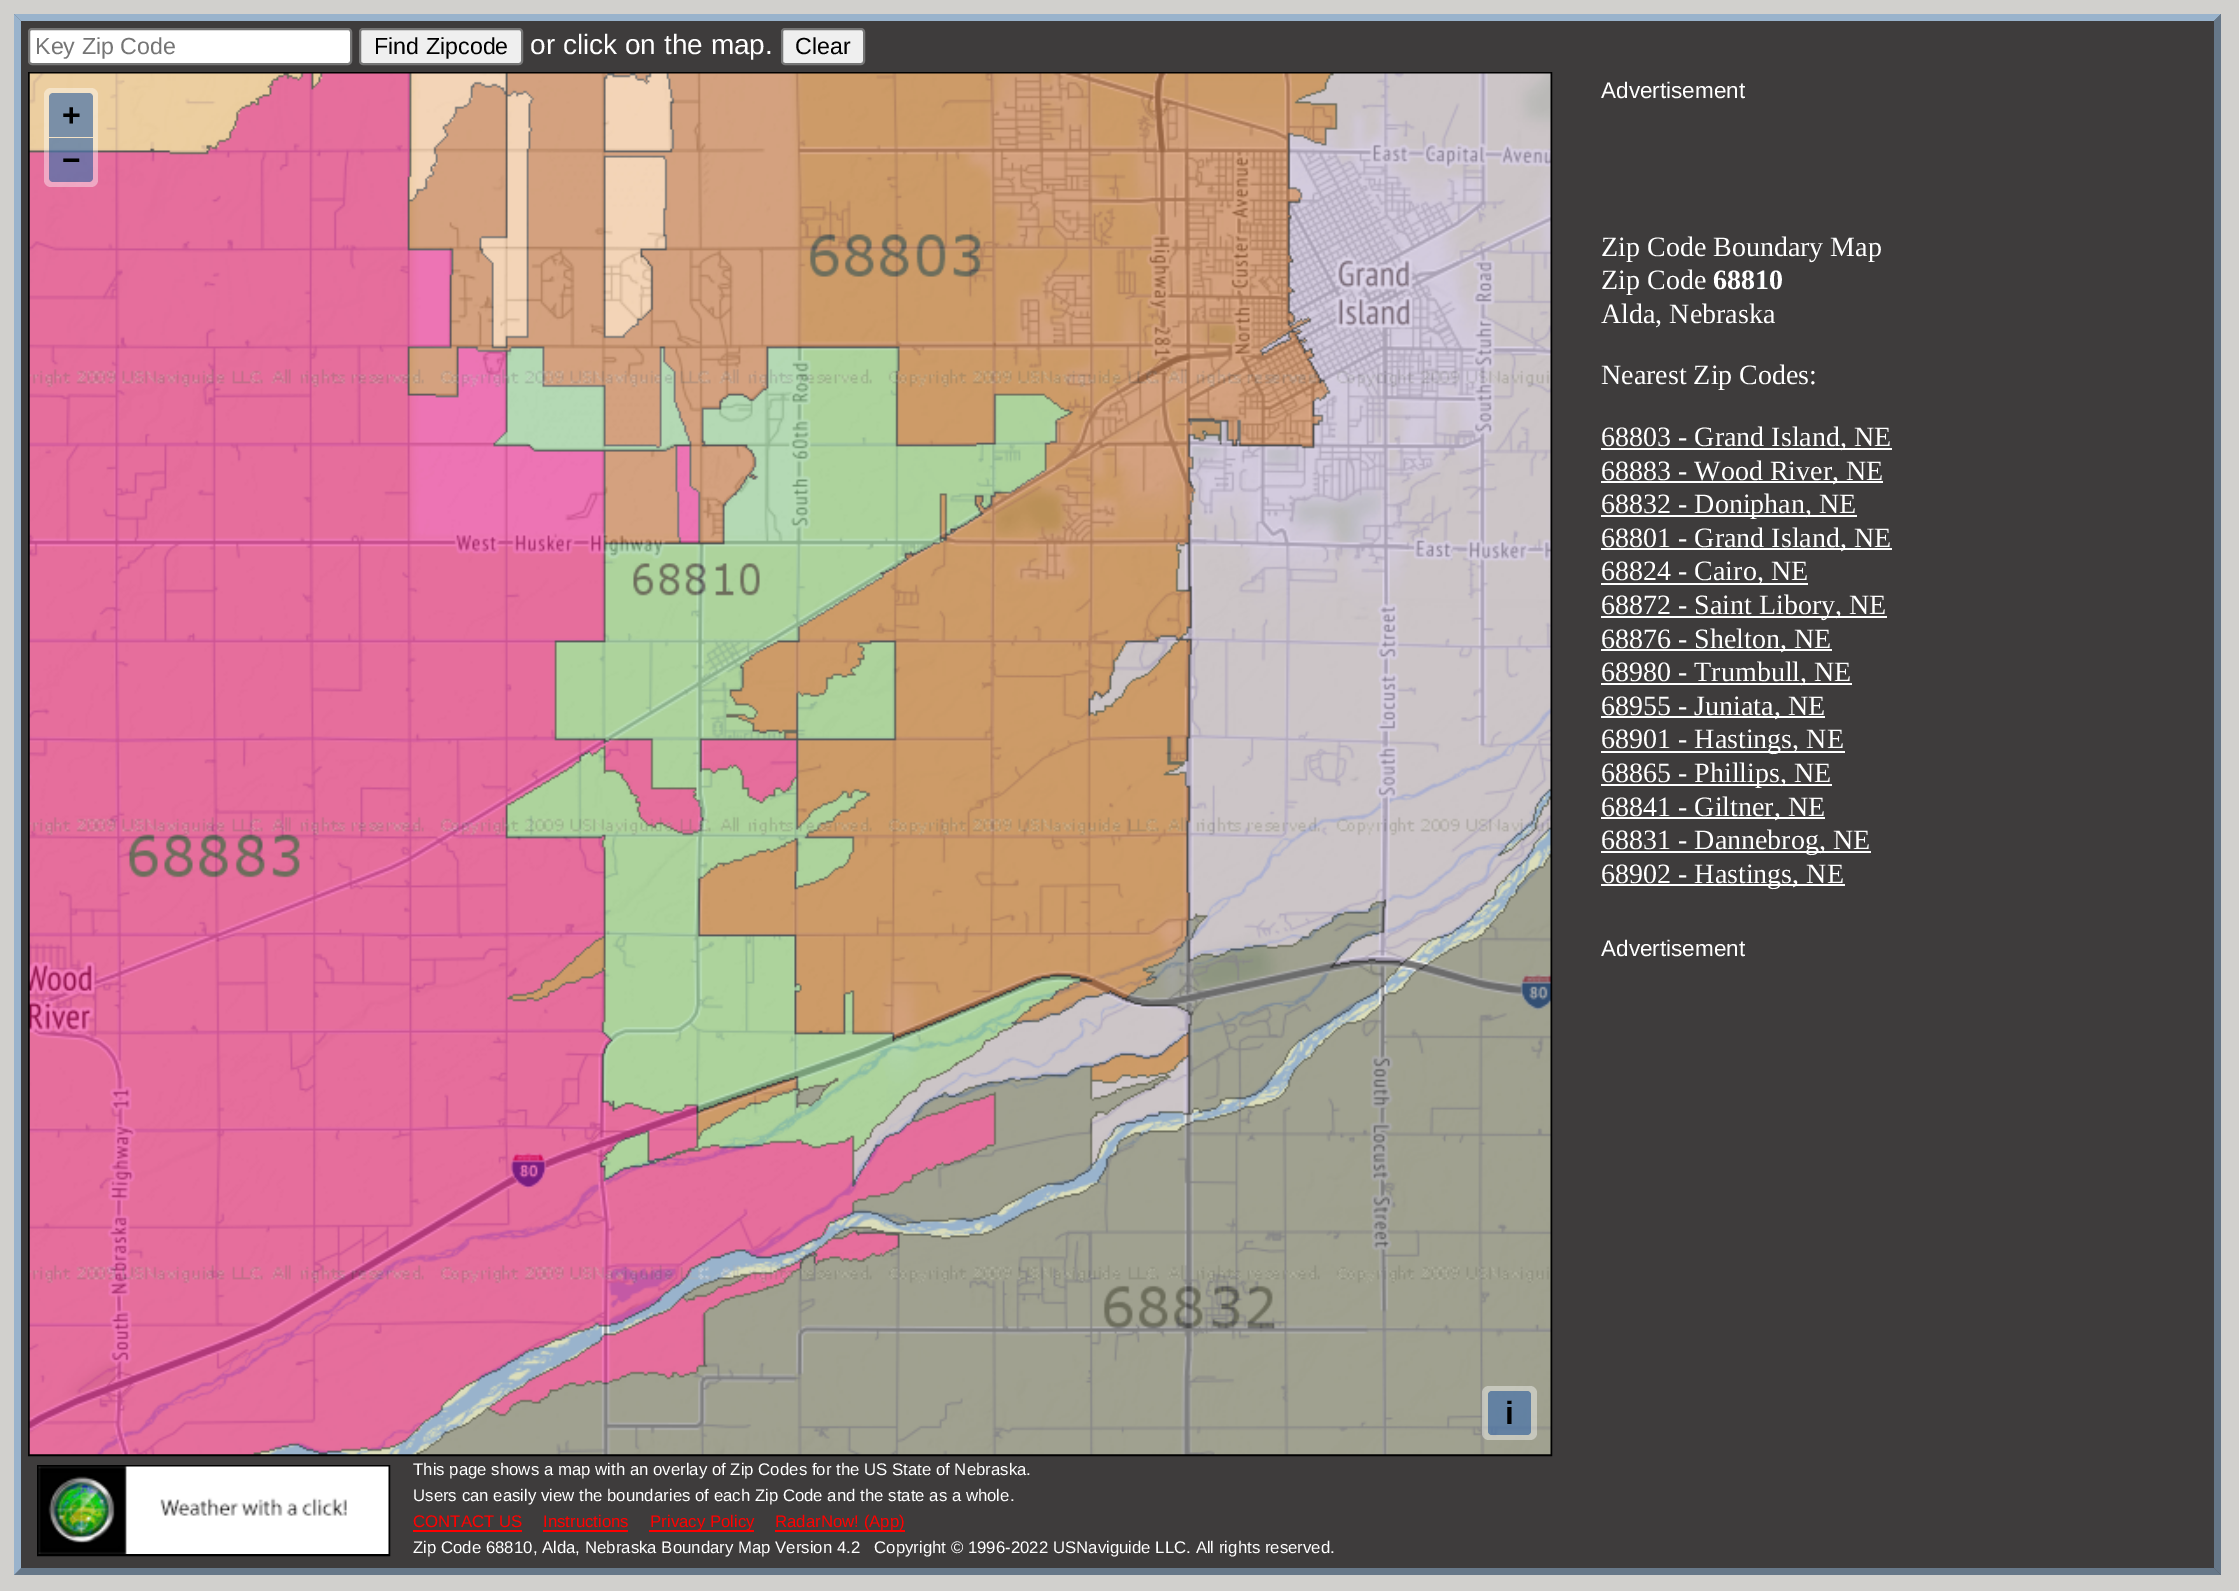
%!PS-Adobe-3.0
%%BoundingBox: 0 0 2239 1591
%%LanguageLevel: 3
%%Pages: 1
%%EndComments
%%BeginProlog
/setink { 3 { 255 div 3 1 roll } repeat setrgbcolor } def
/usefont { [ exch dup neg 0 0 3 -1 roll 0 0 ] selectfont } def
/drawtext { setink usefont moveto show } def
/fillbox { setink rectfill } def
/setalpha { dup .setfillconstantalpha .setstrokeconstantalpha } def
/rrect { 5 dict begin { /r /h /w /y /x } { exch def } forall
  x r add y moveto x w add y 2 copy h add r arct x w add y h add x 1 index r arct
  x y h add x y r arct x y 2 copy exch w add exch r arct closepath end } def
/drawimage { 5 dict begin { /h /w /y /x /name } { exch def } forall
  gsave x y translate w h scale
  w h 8 [w 0 0 h 0 0] name (r) file false 3 colorimage grestore end } def
%%EndProlog
%%BeginSetup
<< /PageSize [2239 1591] /PageUsesTransparency true >> setpagedevice
%%EndSetup
%%Page: 1 1
0 .pushpdf14devicefilter
0 1591 translate 1 -1 scale
4 setmiterlimit
0 0 2239 1591 209 208 205 fillbox
14 14 2207 1561 62 60 60 fillbox
153 179 204 setink
14 14 moveto 2221 14 lineto 2214 21 lineto 21 21 lineto closepath fill
102 119 136 setink
2221 14 moveto 2221 1575 lineto 2214 1568 lineto 2214 21 lineto closepath fill
2221 1575 moveto 14 1575 lineto 21 1568 lineto 2214 1568 lineto closepath fill
153 179 204 setink
14 1575 moveto 14 14 lineto 21 21 lineto 21 1568 lineto closepath fill
255 255 255 setink
29 29 322 35 3 rrect gsave fill grestore
118 118 118 setink
2 setlinewidth
stroke
(Key Zip Code) 35 54 /LiberationSans-Regular 23.25 117 117 117 drawtext
239 239 239 setink
360 29 162 35 3 rrect gsave fill grestore
118 118 118 setink
stroke
(Find Zipcode) 374 54 /LiberationSans-Regular 23.25 0 0 0 drawtext
(or click on the map.) 530 54 /LiberationSans-Regular 28 255 255 255 drawtext
239 239 239 setink
782 29 82 35 3 rrect gsave fill grestore
118 118 118 setink
stroke
(Clear) 795 54 /LiberationSans-Regular 23.25 0 0 0 drawtext
29 73 1522 1382 rectstroke
(assets/img1.rgb) 29 73 1522 1382 drawimage
0.4 setalpha
255 255 255 setink
44 88 54 99 7 rrect fill
1 setalpha
122 143 167 setink
53 93 moveto 89 93 lineto 91 93 93 95 93 97 curveto 93 137 lineto 49 137 lineto 49 97 lineto 49 95 51 93 53 93 curveto closepath fill
(+) 62 126 /LiberationSans-Bold 32 0 0 0 drawtext
0.5 setalpha
0 60 136 setink
49 138 moveto 93 138 lineto 93 178 lineto 93 180 91 182 89 182 curveto 53 182 lineto 51 182 49 180 49 178 curveto closepath fill
1 setalpha
(−) 62 171 /LiberationSans-Bold 32 0 0 0 drawtext
0.4 setalpha
255 255 255 setink
1482 1386 55 54 7 rrect fill
0.5 setalpha
0 60 136 setink
1488 1391 43 44 4 rrect fill
1 setalpha
(i) 1505 1424 /LiberationSans-Bold 32 0 0 0 drawtext
(Advertisement) 1601 98 /LiberationSans-Regular 22.5 255 255 255 drawtext
(Zip Code Boundary Map) 1601 256 /LiberationSerif-Regular 28 255 255 255 drawtext
(Zip Code) 1601 289 /LiberationSerif-Regular 28 255 255 255 drawtext
(68810) 1713 289 /LiberationSerif-Bold 28 255 255 255 drawtext
(Alda, Nebraska) 1601 323 /LiberationSerif-Regular 28 255 255 255 drawtext
(Nearest Zip Codes:) 1601 384 /LiberationSerif-Regular 28 255 255 255 drawtext
1601 448 291 2 255 255 255 fillbox
(68803 - Grand Island, NE) 1601 446 /LiberationSerif-Regular 28 255 255 255 drawtext
1601 481 282 2 255 255 255 fillbox
(68883 - Wood River, NE) 1601 480 /LiberationSerif-Regular 28 255 255 255 drawtext
1601 515 256 2 255 255 255 fillbox
(68832 - Doniphan, NE) 1601 513 /LiberationSerif-Regular 28 255 255 255 drawtext
1601 548 291 2 255 255 255 fillbox
(68801 - Grand Island, NE) 1601 547 /LiberationSerif-Regular 28 255 255 255 drawtext
1601 583 207 2 255 255 255 fillbox
(68824 - Cairo, NE) 1601 580 /LiberationSerif-Regular 28 255 255 255 drawtext
1601 616 286 2 255 255 255 fillbox
(68872 - Saint Libory, NE) 1601 614 /LiberationSerif-Regular 28 255 255 255 drawtext
1601 649 231 2 255 255 255 fillbox
(68876 - Shelton, NE) 1601 648 /LiberationSerif-Regular 28 255 255 255 drawtext
1601 683 251 2 255 255 255 fillbox
(68980 - Trumbull, NE) 1601 681 /LiberationSerif-Regular 28 255 255 255 drawtext
1601 716 224 2 255 255 255 fillbox
(68955 - Juniata, NE) 1601 715 /LiberationSerif-Regular 28 255 255 255 drawtext
1601 751 244 2 255 255 255 fillbox
(68901 - Hastings, NE) 1601 748 /LiberationSerif-Regular 28 255 255 255 drawtext
1601 784 231 2 255 255 255 fillbox
(68865 - Phillips, NE) 1601 782 /LiberationSerif-Regular 28 255 255 255 drawtext
1601 817 224 2 255 255 255 fillbox
(68841 - Giltner, NE) 1601 816 /LiberationSerif-Regular 28 255 255 255 drawtext
1601 851 270 2 255 255 255 fillbox
(68831 - Dannebrog, NE) 1601 849 /LiberationSerif-Regular 28 255 255 255 drawtext
1601 884 244 2 255 255 255 fillbox
(68902 - Hastings, NE) 1601 883 /LiberationSerif-Regular 28 255 255 255 drawtext
(Advertisement) 1601 956 /LiberationSans-Regular 22.5 255 255 255 drawtext
0 0 0 setink
38 1466 351 89 rectstroke
(assets/img2.rgb) 38 1466 351 88 drawimage
(This page shows a map with an overlay of Zip Codes for the US State of Nebraska.) 413 1475 /LiberationSans-Regular 16.8 255 255 255 drawtext
(Users can easily view the boundaries of each Zip Code and the state as a whole.) 413 1501 /LiberationSans-Regular 16.8 255 255 255 drawtext
(CONTACT US) 413 1527 /LiberationSans-Regular 16.8 255 0 0 drawtext
413 1530 109 2 255 0 0 fillbox
(Instructions) 543 1527 /LiberationSans-Regular 16.8 255 0 0 drawtext
543 1530 85 2 255 0 0 fillbox
649 1530 105 2 255 0 0 fillbox
(Privacy Policy) 650 1527 /LiberationSans-Regular 16.8 255 0 0 drawtext
775 1530 130 2 255 0 0 fillbox
(RadarNow! \(App\)) 775 1527 /LiberationSans-Regular 16.8 255 0 0 drawtext
(Zip Code 68810, Alda, Nebraska Boundary Map Version 4.2   Copyright © 1996-2022 USNaviguide LLC. All rights reserved.) 413 1553 /LiberationSans-Regular 16.8 255 255 255 drawtext
.poppdf14devicefilter showpage
%%EOF
